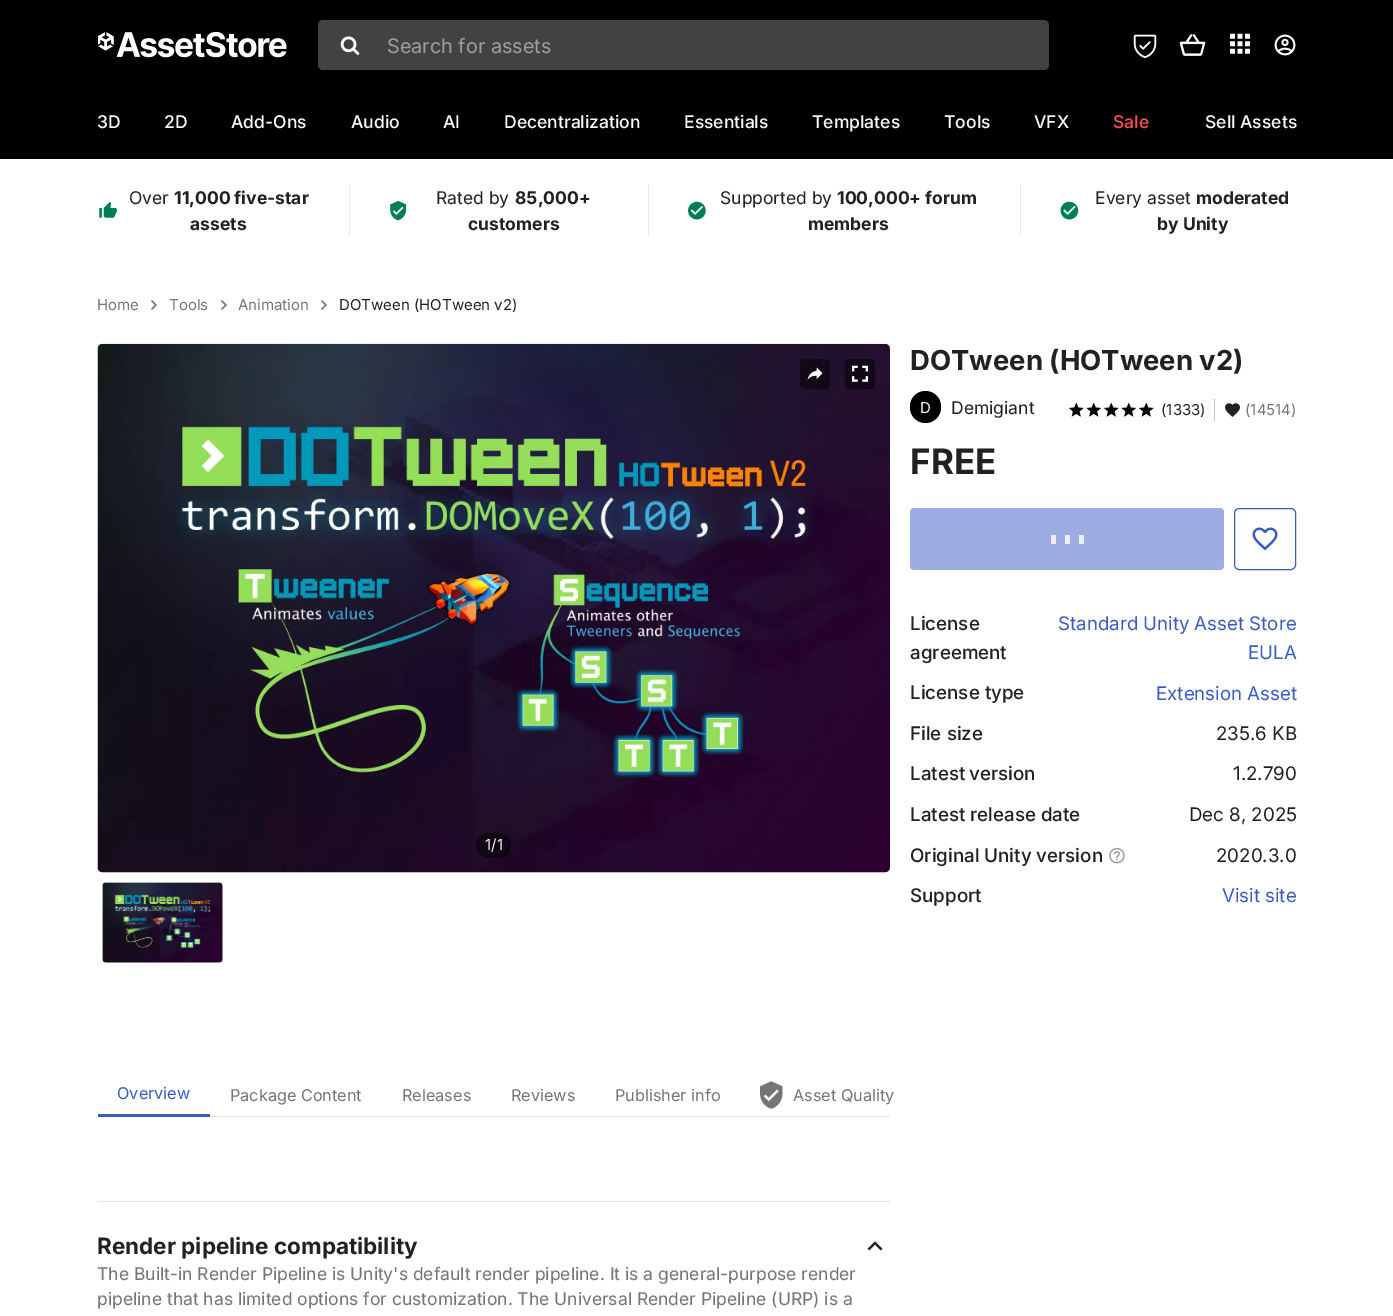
%!PS-Adobe-3.0
%%BoundingBox: 0 0 1393 1316
%%LanguageLevel: 3
%%Pages: 1
%%EndComments
%%BeginProlog
/setink { 3 { 255 div 3 1 roll } repeat setrgbcolor } def
/usefont { [ exch dup neg 0 0 3 -1 roll 0 0 ] selectfont } def
/drawtext { setink usefont moveto show } def
/fillbox { setink rectfill } def
/setalpha { dup .setfillconstantalpha .setstrokeconstantalpha } def
/rrect { 5 dict begin { /r /h /w /y /x } { exch def } forall
  x r add y moveto x w add y 2 copy h add r arct x w add y h add x 1 index r arct
  x y h add x y r arct x y 2 copy exch w add exch r arct closepath end } def
/drawimage { 5 dict begin { /h /w /y /x /name } { exch def } forall
  gsave x y translate w h scale
  w h 8 [w 0 0 h 0 0] name (r) file false 3 colorimage grestore end } def
%%EndProlog
%%BeginSetup
<< /PageSize [1393 1316] /PageUsesTransparency true >> setpagedevice
%%EndSetup
%%Page: 1 1
0 .pushpdf14devicefilter
0 1316 translate 1 -1 scale
4 setmiterlimit
0 0 1393 1316 255 255 255 fillbox
0 0 1393 159 0 0 0 fillbox
(assets/img1.rgb) 98 31 189 27 drawimage
66 66 66 setink
318 20 731 50 5 rrect fill
(assets/img2.rgb) 340 36 20 19 drawimage
(Search for assets) 387 53 /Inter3-Regular 20 158 158 158 drawtext
(assets/img3.rgb) 1133 34 24 25 drawimage
(assets/img4.rgb) 1179 34 27 22 drawimage
(assets/img5.rgb) 1230 33 20 21 drawimage
(assets/img6.rgb) 1274 34 22 22 drawimage
(3D) 97 128 /Inter-Medium 17.5 250 250 250 drawtext
(2D) 164 128 /Inter-Medium 17.5 250 250 250 drawtext
(Add-Ons) 231 128 /Inter-Medium 17.5 250 250 250 drawtext
(Audio) 351 128 /Inter-Medium 17.5 250 250 250 drawtext
(AI) 443 128 /Inter-Medium 17.5 250 250 250 drawtext
(Decentralization) 504 128 /Inter-Medium 17.5 250 250 250 drawtext
(Essentials) 684 128 /Inter-Medium 17.5 250 250 250 drawtext
(Templates) 812 128 /Inter-Medium 17.5 250 250 250 drawtext
(Tools) 944 128 /Inter-Medium 17.5 250 250 250 drawtext
(VFX) 1034 128 /Inter-Medium 17.5 250 250 250 drawtext
(Sale) 1113 128 /Inter-Medium 17.5 255 80 80 drawtext
(Sell Assets) 1205 128 /Inter-Medium 17.5 250 250 250 drawtext
(assets/img7.rgb) 99 201 18 17 drawimage
(Over) 129 204 /Inter-Regular 17.5 33 33 33 drawtext
(11,000 five-star) 174 204 /Inter-Bold 17.5 33 33 33 drawtext
(assets) 190 230 /Inter-Bold 17.5 33 33 33 drawtext
648 184 1 52 233 233 233 fillbox
349 184 1 52 233 233 233 fillbox
(assets/img8.rgb) 390 200 17 21 drawimage
(Rated by) 436 204 /Inter-Regular 17.5 33 33 33 drawtext
(85,000+) 515 204 /Inter-Bold 17.5 33 33 33 drawtext
(customers) 468 230 /Inter-Bold 17.5 33 33 33 drawtext
1020 184 1 52 233 233 233 fillbox
(assets/img9.rgb) 688 201 18 19 drawimage
(Supported by) 720 204 /Inter-Regular 17.5 33 33 33 drawtext
(100,000+ forum) 837 204 /Inter-Bold 17.5 33 33 33 drawtext
(members) 808 230 /Inter-Bold 17.5 33 33 33 drawtext
(assets/img10.rgb) 1060 201 19 19 drawimage
(Every asset) 1095 204 /Inter-Regular 17.5 33 33 33 drawtext
(moderated) 1196 204 /Inter-Bold 17.5 33 33 33 drawtext
(by Unity) 1157 230 /Inter-Bold 17.5 33 33 33 drawtext
(Home) 97 310 /Inter-Regular 15 117 117 117 drawtext
(assets/img11.rgb) 151 300 6 10 drawimage
(Tools) 169 310 /Inter-Regular 15 117 117 117 drawtext
(assets/img11.rgb) 221 300 6 10 drawimage
(Animation) 238 310 /Inter-Regular 15 117 117 117 drawtext
(assets/img11.rgb) 321 300 6 10 drawimage
(DOTween \(HOTween v2\)) 339 310 /Inter-Regular 15 33 33 33 drawtext
(DOTween \(HOTween v2\)) 910 370 /Inter-Bold 27.5 33 33 33 drawtext
0 0 0 setink
910 391 31 32 15.5 rrect fill
(D) 920 413 /Inter-Regular 15 250 250 250 drawtext
(Demigiant) 951 414 /Inter-Regular 17.5 33 33 33 drawtext
(assets/img12.rgb) 1069 402 15 15 drawimage
(assets/img13.rgb) 1086 402 15 15 drawimage
(assets/img12.rgb) 1104 402 15 15 drawimage
(assets/img13.rgb) 1121 402 15 15 drawimage
(assets/img12.rgb) 1139 402 15 15 drawimage
(\(1333\)) 1161 415 /Inter-Regular 15 33 33 33 drawtext
1214 399 1 22 194 194 194 fillbox
(assets/img14.rgb) 1225 403 15 14 drawimage
(\(14514\)) 1245 415 /Inter-Regular 15 117 117 117 drawtext
(FREE) 910 474 /Inter-Bold 35 33 33 33 drawtext
157 173 227 setink
910 508 314 62 4 rrect fill
1051 535 5 9 235 239 249 fillbox
1065 535 5 9 235 239 249 fillbox
1079 535 5 9 235 239 249 fillbox
58 91 199 setink
1234.5 508.5 61 61 4.5 rrect stroke
(assets/img15.rgb) 1252 527 26 24 drawimage
(License) 910 630 /Inter-Medium 18.75 33 33 33 drawtext
(agreement) 910 659 /Inter-Medium 18.75 33 33 33 drawtext
(Standard Unity Asset Store) 1058 630 /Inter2-Regular 18.75 58 91 199 drawtext
(EULA) 1248 659 /Inter2-Regular 18.75 58 91 199 drawtext
(License type) 910 699 /Inter-Medium 18.75 33 33 33 drawtext
(Extension Asset) 1156 700 /Inter2-Regular 18.75 58 91 199 drawtext
(File size) 910 740 /Inter-Medium 18.75 33 33 33 drawtext
(235.6 KB) 1216 740 /Inter2-Regular 18.75 33 33 33 drawtext
/Inter-Medium 18.75 usefont
910 780 moveto -1 0 32 (Latest version) widthshow
(1.2.790) 1233 780 /Inter2-Regular 18.75 33 33 33 drawtext
(Latest release date) 910 821 /Inter-Medium 18.75 33 33 33 drawtext
(Dec 8, 2025) 1189 821 /Inter2-Regular 18.75 33 33 33 drawtext
(Original Unity version) 910 862 /Inter-Medium 18.75 33 33 33 drawtext
(assets/img16.rgb) 1109 847 16 17 drawimage
(2020.3.0) 1216 862 /Inter2-Regular 18.75 33 33 33 drawtext
(Support) 910 902 /Inter-Medium 18.75 33 33 33 drawtext
(Visit site) 1222 902 /Inter2-Regular 18.75 58 91 199 drawtext
245 245 245 setink
98 344 792 529 5 rrect fill
(assets/img19.rgb) 97 343 793 530 drawimage
16 9 23 setink
800 359 30 30 5 rrect fill
(assets/img17.rgb) 807 367 16 13 drawimage
0.5 setalpha
0 0 0 setink
845 359 30 30 5 rrect fill
1 setalpha
(assets/img18.rgb) 851 365 18 17 drawimage
0.5 setalpha
476 833 35 25 12.5 rrect fill
1 setalpha
(1/1) 485 850 /Inter-Regular 15 250 250 250 drawtext
(assets/img20.rgb) 102 882 121 81 drawimage
255 255 255 setink
101.5 881.5 122 82 4.5 rrect stroke
210 1116 680 1 228 228 228 fillbox
98 1114 112 3 58 91 199 fillbox
(Overview) 117 1099 /Inter-Regular 16.25 58 91 199 drawtext
(Package Content) 230 1101 /Inter-Regular 16.25 117 117 117 drawtext
(Releases) 402 1101 /Inter-Regular 16.25 117 117 117 drawtext
(Reviews) 511 1101 /Inter-Regular 16.25 117 117 117 drawtext
(Publisher info) 615 1101 /Inter-Regular 16.25 117 117 117 drawtext
(assets/img21.rgb) 760 1081 23 28 drawimage
(Asset Quality) 793 1101 /Inter-Regular 16.25 117 117 117 drawtext
98 1201 792 1 228 228 228 fillbox
(Render pipeline compatibility) 97 1254 /Inter-Bold 22.5 33 33 33 drawtext
(assets/img22.rgb) 867 1241 16 10 drawimage
(The Built-in Render Pipeline is Unity's default render pipeline. It is a general-purpose render) 97 1280 /Inter-Regular 17.5 117 117 117 drawtext
(pipeline that has limited options for customization. The Universal Render Pipeline \(URP\) is a) 97 1305 /Inter-Regular 17.5 117 117 117 drawtext
.poppdf14devicefilter showpage
%%EOF
